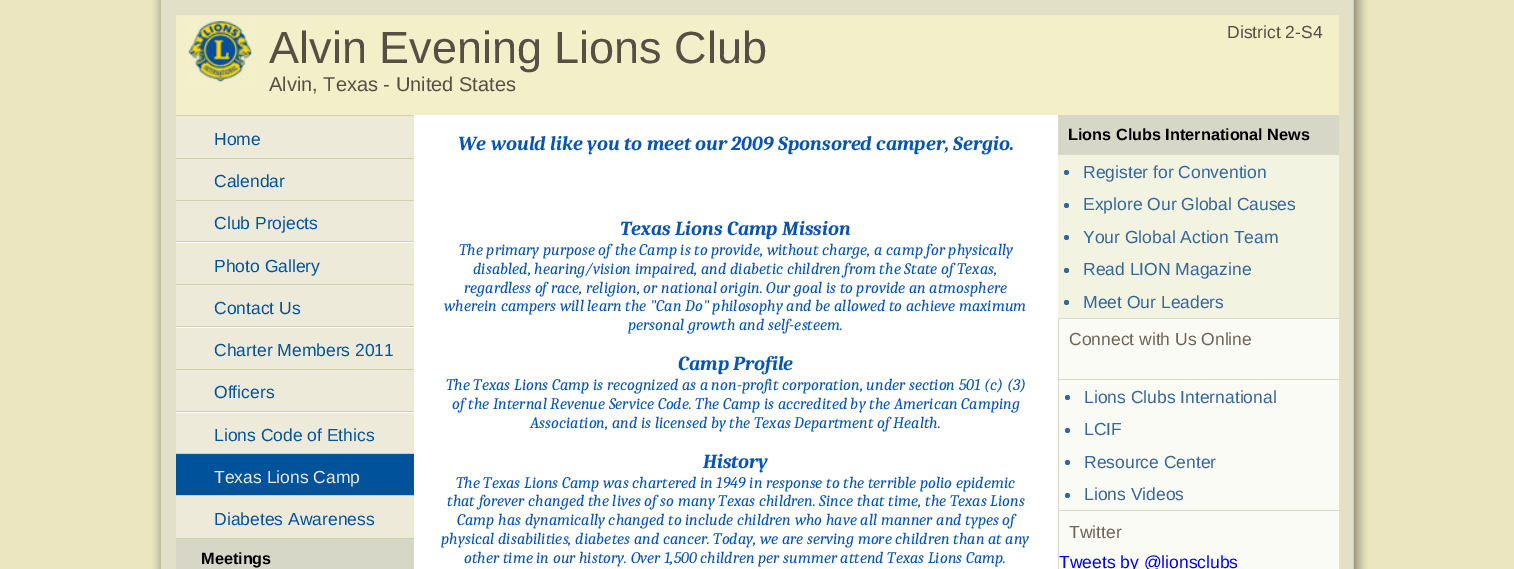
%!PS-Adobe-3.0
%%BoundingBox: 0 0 1514 569
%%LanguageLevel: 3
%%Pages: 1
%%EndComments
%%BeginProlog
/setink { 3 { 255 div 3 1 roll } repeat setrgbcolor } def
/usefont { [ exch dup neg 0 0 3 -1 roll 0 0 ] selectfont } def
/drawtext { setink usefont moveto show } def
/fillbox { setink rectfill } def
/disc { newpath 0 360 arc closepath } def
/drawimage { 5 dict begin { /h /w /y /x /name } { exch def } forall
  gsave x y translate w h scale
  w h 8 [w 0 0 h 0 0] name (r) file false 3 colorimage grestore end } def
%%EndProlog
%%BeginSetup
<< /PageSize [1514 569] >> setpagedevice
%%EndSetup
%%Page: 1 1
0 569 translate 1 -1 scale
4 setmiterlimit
0 0 1514 569 235 230 192 fillbox
(assets/img1.rgb) 152 0 9 569 drawimage
161 0 1193 569 226 224 198 fillbox
176 15 1163 100 243 240 201 fillbox
(assets/img2.rgb) 188 21 64 61 drawimage
(Alvin Evening Lions Club) 269 63 /LiberationSans-Regular 45 88 79 68 drawtext
(Alvin, Texas - United States) 269 91 /LiberationSans-Regular 20 88 79 68 drawtext
(District 2-S4) 1227 38 /LiberationSans-Regular 17.5 88 79 68 drawtext
176 115 882 454 255 255 255 fillbox
176 115 238 1 213 208 170 fillbox
176 158 238 1 213 208 170 fillbox
176 116 238 42 237 234 218 fillbox
(Home) 214 145 /LiberationSans-Regular 17.5 0 82 155 drawtext
176 200 238 1 213 208 170 fillbox
176 159 238 41 237 234 218 fillbox
(Calendar) 214 187 /LiberationSans-Regular 17.5 0 82 155 drawtext
176 241 238 1 213 208 170 fillbox
176 201 238 40 237 234 218 fillbox
(Club Projects) 214 229 /LiberationSans-Regular 17.5 0 82 155 drawtext
176 284 238 1 213 208 170 fillbox
176 243 238 41 237 234 218 fillbox
(Photo Gallery) 214 272 /LiberationSans-Regular 17.5 0 82 155 drawtext
176 326 238 1 213 208 170 fillbox
176 285 238 41 237 234 218 fillbox
(Contact Us) 214 314 /LiberationSans-Regular 17.5 0 82 155 drawtext
176 369 238 1 213 208 170 fillbox
176 328 238 41 237 234 218 fillbox
(Charter Members 2011) 214 356 /LiberationSans-Regular 17.5 0 82 155 drawtext
176 411 238 1 213 208 170 fillbox
176 370 238 41 237 234 218 fillbox
(Officers) 214 398 /LiberationSans-Regular 17.5 0 82 155 drawtext
176 453 238 1 213 208 170 fillbox
176 413 238 40 237 234 218 fillbox
(Lions Code of Ethics) 214 441 /LiberationSans-Regular 17.5 0 82 155 drawtext
176 495 238 1 213 208 170 fillbox
176 454 238 41 0 82 155 fillbox
(Texas Lions Camp) 214 483 /LiberationSans-Regular 17.5 237 234 218 drawtext
176 538 238 1 213 208 170 fillbox
176 496 238 42 237 234 218 fillbox
(Diabetes Awareness) 214 525 /LiberationSans-Regular 17.5 0 82 155 drawtext
176 539 238 30 215 215 199 fillbox
(Meetings) 201 564 /LiberationSans-Bold 16.25 0 0 0 drawtext
(We would like you to meet our 2009 Sponsored camper, Sergio.) 458 150 /Caladea-BoldItalic 20 7 84 177 drawtext
(Texas Lions Camp Mission) 620 235 /Caladea-BoldItalic 20 7 84 177 drawtext
(The primary purpose of the Camp is to provide, without charge, a camp for physically) 459 255 /Caladea-Italic 16.25 7 84 177 drawtext
(disabled, hearing/vision impaired, and diabetic children from the State of Texas,) 473 274 /Caladea-Italic 16.25 7 84 177 drawtext
(regardless of race, religion, or national origin. Our goal is to provide an atmosphere) 464 293 /Caladea-Italic 16.25 7 84 177 drawtext
(wherein campers will learn the "Can Do" philosophy and be allowed to achieve maximum) 444 311 /Caladea-Italic 16.25 7 84 177 drawtext
(personal growth and self-esteem.) 628 330 /Caladea-Italic 16.25 7 84 177 drawtext
(Camp Profile) 678 370 /Caladea-BoldItalic 20 7 84 177 drawtext
(The Texas Lions Camp is recognized as a non-profit corporation, under section 501 \(c\) \(3\)) 446 390 /Caladea-Italic 16.25 7 84 177 drawtext
(of the Internal Revenue Service Code. The Camp is accredited by the American Camping) 452 409 /Caladea-Italic 16.25 7 84 177 drawtext
(Association, and is licensed by the Texas Department of Health.) 530 428 /Caladea-Italic 16.25 7 84 177 drawtext
(History) 703 468 /Caladea-BoldItalic 20 7 84 177 drawtext
(The Texas Lions Camp was chartered in 1949 in response to the terrible polio epidemic) 456 488 /Caladea-Italic 16.25 7 84 177 drawtext
(that forever changed the lives of so many Texas children. Since that time, the Texas Lions) 447 506 /Caladea-Italic 16.25 7 84 177 drawtext
(Camp has dynamically changed to include children who have all manner and types of) 457 525 /Caladea-Italic 16.25 7 84 177 drawtext
(physical disabilities, diabetes and cancer. Today, we are serving more children than at any) 441 544 /Caladea-Italic 16.25 7 84 177 drawtext
(other time in our history. Over 1,500 children per summer attend Texas Lions Camp.) 464 563 /Caladea-Italic 16.25 7 84 177 drawtext
1058 155 281 163 243 243 225 fillbox
1058 115 281 39 215 215 199 fillbox
(Lions Clubs International News) 1068 140 /LiberationSans-Bold 16.25 0 0 0 drawtext
1058 154 281 1 220 216 200 fillbox
51 102 153 setink
1066.5 172.5 2.5 disc fill
(Register for Convention) 1083 178 /LiberationSans-Regular 17.5 51 102 153 drawtext
1066.5 205.5 2.5 disc fill
(Explore Our Global Causes) 1083 210 /LiberationSans-Regular 17.5 51 102 153 drawtext
1066.5 237.5 2.5 disc fill
(Your Global Action Team) 1083 243 /LiberationSans-Regular 17.5 51 102 153 drawtext
1066.5 270.5 2.5 disc fill
(Read LION Magazine) 1083 275 /LiberationSans-Regular 17.5 51 102 153 drawtext
1066.5 302.5 2.5 disc fill
(Meet Our Leaders) 1083 308 /LiberationSans-Regular 17.5 51 102 153 drawtext
1058 318 281 1 220 216 200 fillbox
1059 319 280 60 251 251 246 fillbox
1058 319 1 60 220 216 200 fillbox
(Connect with Us Online) 1069 345 /LiberationSans-Regular 17.5 112 99 86 drawtext
1058 379 281 1 220 216 200 fillbox
1059 380 280 130 251 251 246 fillbox
1058 380 1 130 220 216 200 fillbox
51 102 153 setink
1067.5 397.5 2.5 disc fill
(Lions Clubs International) 1084 403 /LiberationSans-Regular 17.5 51 102 153 drawtext
1067.5 430.5 2.5 disc fill
(LCIF) 1084 435 /LiberationSans-Regular 17.5 51 102 153 drawtext
1067.5 462.5 2.5 disc fill
(Resource Center) 1084 468 /LiberationSans-Regular 17.5 51 102 153 drawtext
1067.5 495.5 2.5 disc fill
(Lions Videos) 1084 500 /LiberationSans-Regular 17.5 51 102 153 drawtext
1058 510 281 1 220 216 200 fillbox
1059 511 280 58 251 251 246 fillbox
1058 511 1 58 220 216 200 fillbox
(Twitter) 1069 538 /LiberationSans-Regular 17.5 112 99 86 drawtext
(Tweets by @lionsclubs) 1059 568 /LiberationSans-Regular 17.5 0 0 238 drawtext
(assets/img3.rgb) 1353 0 15 569 drawimage
showpage
%%EOF
